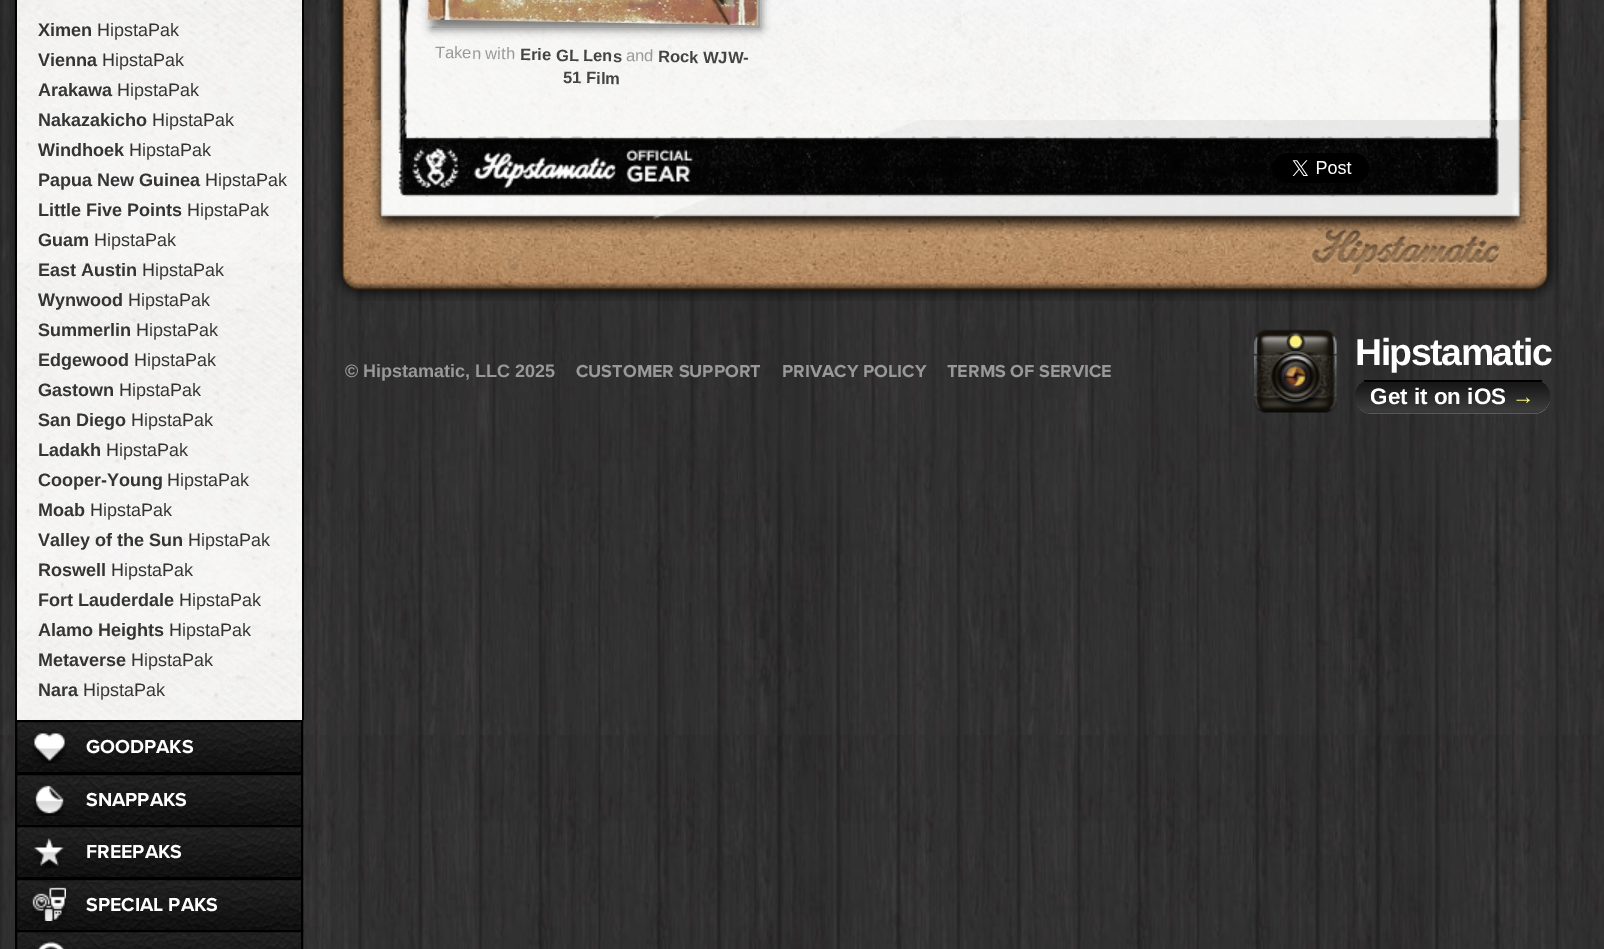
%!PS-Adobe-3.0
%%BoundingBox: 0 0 1604 949
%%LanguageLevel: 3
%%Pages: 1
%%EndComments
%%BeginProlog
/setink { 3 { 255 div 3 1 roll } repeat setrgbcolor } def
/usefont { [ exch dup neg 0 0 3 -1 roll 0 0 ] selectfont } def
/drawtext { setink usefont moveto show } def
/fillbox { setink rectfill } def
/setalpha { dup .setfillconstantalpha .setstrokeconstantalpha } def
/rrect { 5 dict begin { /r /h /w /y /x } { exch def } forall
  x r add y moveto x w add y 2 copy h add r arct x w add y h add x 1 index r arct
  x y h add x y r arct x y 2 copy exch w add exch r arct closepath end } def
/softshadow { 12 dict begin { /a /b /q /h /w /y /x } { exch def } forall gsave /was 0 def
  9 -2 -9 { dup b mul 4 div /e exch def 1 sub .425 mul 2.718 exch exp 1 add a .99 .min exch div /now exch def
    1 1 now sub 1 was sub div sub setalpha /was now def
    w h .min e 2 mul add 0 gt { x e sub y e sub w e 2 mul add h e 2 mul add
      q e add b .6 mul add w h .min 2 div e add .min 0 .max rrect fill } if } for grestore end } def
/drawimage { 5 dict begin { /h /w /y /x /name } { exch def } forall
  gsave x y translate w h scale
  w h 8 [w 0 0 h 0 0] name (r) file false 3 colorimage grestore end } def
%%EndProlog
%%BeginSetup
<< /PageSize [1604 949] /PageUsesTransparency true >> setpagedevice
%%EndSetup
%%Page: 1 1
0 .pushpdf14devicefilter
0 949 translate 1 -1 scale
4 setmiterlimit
0 0 1604 949 255 255 255 fillbox
(assets/img1.rgb) 0 0 1604 949 drawimage
0 0 0 setink
15 -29 285 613 8 7 0.5 softshadow
(assets/img2.rgb) 17 0 285 720 drawimage
302 0 2 720 0 0 0 fillbox
15 0 2 720 0 0 0 fillbox
(Ximen) 38 36 /LiberationSans-Bold 18 52 52 52 drawtext
(HipstaPak) 97 36 /LiberationSans-Regular 18 52 52 52 drawtext
(Vienna) 38 66 /LiberationSans-Bold 18 52 52 52 drawtext
(HipstaPak) 102 66 /LiberationSans-Regular 18 52 52 52 drawtext
(Arakawa) 38 96 /LiberationSans-Bold 18 52 52 52 drawtext
(HipstaPak) 117 96 /LiberationSans-Regular 18 52 52 52 drawtext
(Nakazakicho) 38 126 /LiberationSans-Bold 18 52 52 52 drawtext
(HipstaPak) 152 126 /LiberationSans-Regular 18 52 52 52 drawtext
(Windhoek) 38 156 /LiberationSans-Bold 18 52 52 52 drawtext
(HipstaPak) 129 156 /LiberationSans-Regular 18 52 52 52 drawtext
(Papua New Guinea) 38 186 /LiberationSans-Bold 18 52 52 52 drawtext
(HipstaPak) 205 186 /LiberationSans-Regular 18 52 52 52 drawtext
(Little Five Points) 38 216 /LiberationSans-Bold 18 52 52 52 drawtext
(HipstaPak) 187 216 /LiberationSans-Regular 18 52 52 52 drawtext
(Guam) 38 246 /LiberationSans-Bold 18 52 52 52 drawtext
(HipstaPak) 94 246 /LiberationSans-Regular 18 52 52 52 drawtext
(East Austin) 38 276 /LiberationSans-Bold 18 52 52 52 drawtext
(HipstaPak) 142 276 /LiberationSans-Regular 18 52 52 52 drawtext
(Wynwood) 38 306 /LiberationSans-Bold 18 52 52 52 drawtext
(HipstaPak) 128 306 /LiberationSans-Regular 18 52 52 52 drawtext
(Summerlin) 38 336 /LiberationSans-Bold 18 52 52 52 drawtext
(HipstaPak) 136 336 /LiberationSans-Regular 18 52 52 52 drawtext
(Edgewood) 38 366 /LiberationSans-Bold 18 52 52 52 drawtext
(HipstaPak) 134 366 /LiberationSans-Regular 18 52 52 52 drawtext
(Gastown) 38 396 /LiberationSans-Bold 18 52 52 52 drawtext
(HipstaPak) 119 396 /LiberationSans-Regular 18 52 52 52 drawtext
(San Diego) 38 426 /LiberationSans-Bold 18 52 52 52 drawtext
(HipstaPak) 131 426 /LiberationSans-Regular 18 52 52 52 drawtext
(Ladakh) 38 456 /LiberationSans-Bold 18 52 52 52 drawtext
(HipstaPak) 106 456 /LiberationSans-Regular 18 52 52 52 drawtext
(Cooper-Young) 38 486 /LiberationSans-Bold 18 52 52 52 drawtext
(HipstaPak) 167 486 /LiberationSans-Regular 18 52 52 52 drawtext
(Moab) 38 516 /LiberationSans-Bold 18 52 52 52 drawtext
(HipstaPak) 90 516 /LiberationSans-Regular 18 52 52 52 drawtext
(Valley of the Sun) 38 546 /LiberationSans-Bold 18 52 52 52 drawtext
(HipstaPak) 188 546 /LiberationSans-Regular 18 52 52 52 drawtext
(Roswell) 38 576 /LiberationSans-Bold 18 52 52 52 drawtext
(HipstaPak) 111 576 /LiberationSans-Regular 18 52 52 52 drawtext
(Fort Lauderdale) 38 606 /LiberationSans-Bold 18 52 52 52 drawtext
(HipstaPak) 179 606 /LiberationSans-Regular 18 52 52 52 drawtext
(Alamo Heights) 38 636 /LiberationSans-Bold 18 52 52 52 drawtext
(HipstaPak) 169 636 /LiberationSans-Regular 18 52 52 52 drawtext
(Metaverse) 38 666 /LiberationSans-Bold 18 52 52 52 drawtext
(HipstaPak) 131 666 /LiberationSans-Regular 18 52 52 52 drawtext
(Nara) 38 696 /LiberationSans-Bold 18 52 52 52 drawtext
(HipstaPak) 83 696 /LiberationSans-Regular 18 52 52 52 drawtext
(assets/img3.rgb) 17 722 284 50 drawimage
0 0 0 setink
2 setlinewidth
16 721 286 52 rectstroke
(assets/img4.rgb) 32 733 34 31 drawimage
(GOODPAKS) 86 753 /ProximaNova-Bold 19.5 255 255 255 drawtext
(assets/img5.rgb) 17 775 284 50 drawimage
0 0 0 setink
16 774 286 52 rectstroke
(assets/img6.rgb) 34 785 31 31 drawimage
(SNAPPAKS) 86 806 /ProximaNova-Bold 19.5 255 255 255 drawtext
(assets/img3.rgb) 17 827 284 50 drawimage
0 0 0 setink
16 826 286 52 rectstroke
(assets/img7.rgb) 34 838 30 31 drawimage
(FREEPAKS) 86 858 /ProximaNova-Bold 19.5 255 255 255 drawtext
(assets/img5.rgb) 17 880 284 50 drawimage
0 0 0 setink
16 879 286 52 rectstroke
(assets/img8.rgb) 32 881 34 40 drawimage
(SPECIAL PAKS) 86 911 /ProximaNova-Bold 19.5 255 255 255 drawtext
(assets/img9.rgb) 17 932 284 17 drawimage
0 0 0 setink
16 931 286 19 rectstroke
(assets/img10.rgb) 37 933 28 16 drawimage
(assets/img11.rgb) 329 0 1230 120 drawimage
255 255 255 setink
433 -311 moveto 763 -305 lineto 758 25 lineto 428 19 lineto closepath fill
0 0 0 setink
431 -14 330 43 0 4.5 0.5 softshadow
(assets/img12.rgb) 427 0 331 26 drawimage
/LiberationSans-Regular 16.5 usefont
153 153 153 setink
gsave 435 58 translate 1 rotate 0 0 moveto (Taken with) show grestore
/LiberationSans-Bold 16.5 usefont
68 68 68 setink
gsave 520 60 translate 1 rotate 0 0 moveto (Erie GL Lens) show grestore
/LiberationSans-Regular 16.5 usefont
153 153 153 setink
gsave 626 61 translate 1 rotate 0 0 moveto (and) show grestore
/LiberationSans-Bold 16.5 usefont
68 68 68 setink
gsave 658 62 translate 1 rotate 0 0 moveto (Rock WJW-) show grestore
gsave 563 83 translate 1 rotate 0 0 moveto (51 Film) show grestore
(assets/img13.rgb) 331 120 1228 181 drawimage
(assets/img14.rgb) 1272 153 97 30 drawimage
(© Hipstamatic, LLC 2025) 345 377 /LiberationSans-Bold 18 153 153 153 drawtext
(CUSTOMER SUPPORT) 576 377 /ProximaNova-Bold 18 153 153 153 drawtext
(PRIVACY POLICY) 782 377 /ProximaNova-Bold 18 153 153 153 drawtext
(TERMS OF SERVICE) 947 377 /ProximaNova-Bold 18 153 153 153 drawtext
(assets/img15.rgb) 1254 329 83 84 drawimage
/LiberationSans-Bold 37.5 usefont
255 255 255 setink
1355 365 moveto -1.5 0 (Hipstamatic) ashow
0.2 setalpha
1356 402 moveto 1358 409 1364 414 1372 414 curveto 1534 414 lineto 1543 414 1550 407 1550 398 curveto 1550 395 1550 393 1549 392 curveto 1550 396 lineto 1550 405 1542 412 1533 412 curveto 1371 412 lineto 1364 412 1358 408 1356 402 curveto closepath fill
gsave
1355 380 195 33 16.5 rrect clip newpath
1 setalpha
gsave 1355 381 moveto 1550 381 lineto 1550 396.5 lineto 1550 405.5 1542.5 413 1533.5 413 curveto 1371.5 413 lineto 1362.5 413 1355 405.5 1355 396.5 curveto closepath clip newpath
<< /ShadingType 2 /ColorSpace /DeviceRGB /Coords [1452 381 1452 413] /Extend [true true] /Function << /FunctionType 3 /Domain [0 1] /Functions [<< /FunctionType 2 /Domain [0 1] /C0 [0.09 0.09 0.09] /C1 [0.11 0.11 0.11] /N 1 >> << /FunctionType 2 /Domain [0 1] /C0 [0.11 0.11 0.11] /C1 [0.231 0.231 0.231] /N 1 >> << /FunctionType 2 /Domain [0 1] /C0 [0.231 0.231 0.231] /C1 [0.224 0.224 0.224] /N 1 >>] /Bounds [0.19 0.89] /Encode [0 1 0 1 0 1] >> >> shfill grestore
grestore
1 setalpha
1364 380 178 2 0 0 0 fillbox
(Get it on iOS) 1370 404 /LiberationSans-Bold 22.5 255 255 255 drawtext
(→) 1512 404 /LiberationSans-Bold 22.5 255 252 135 drawtext
.poppdf14devicefilter showpage
%%EOF
